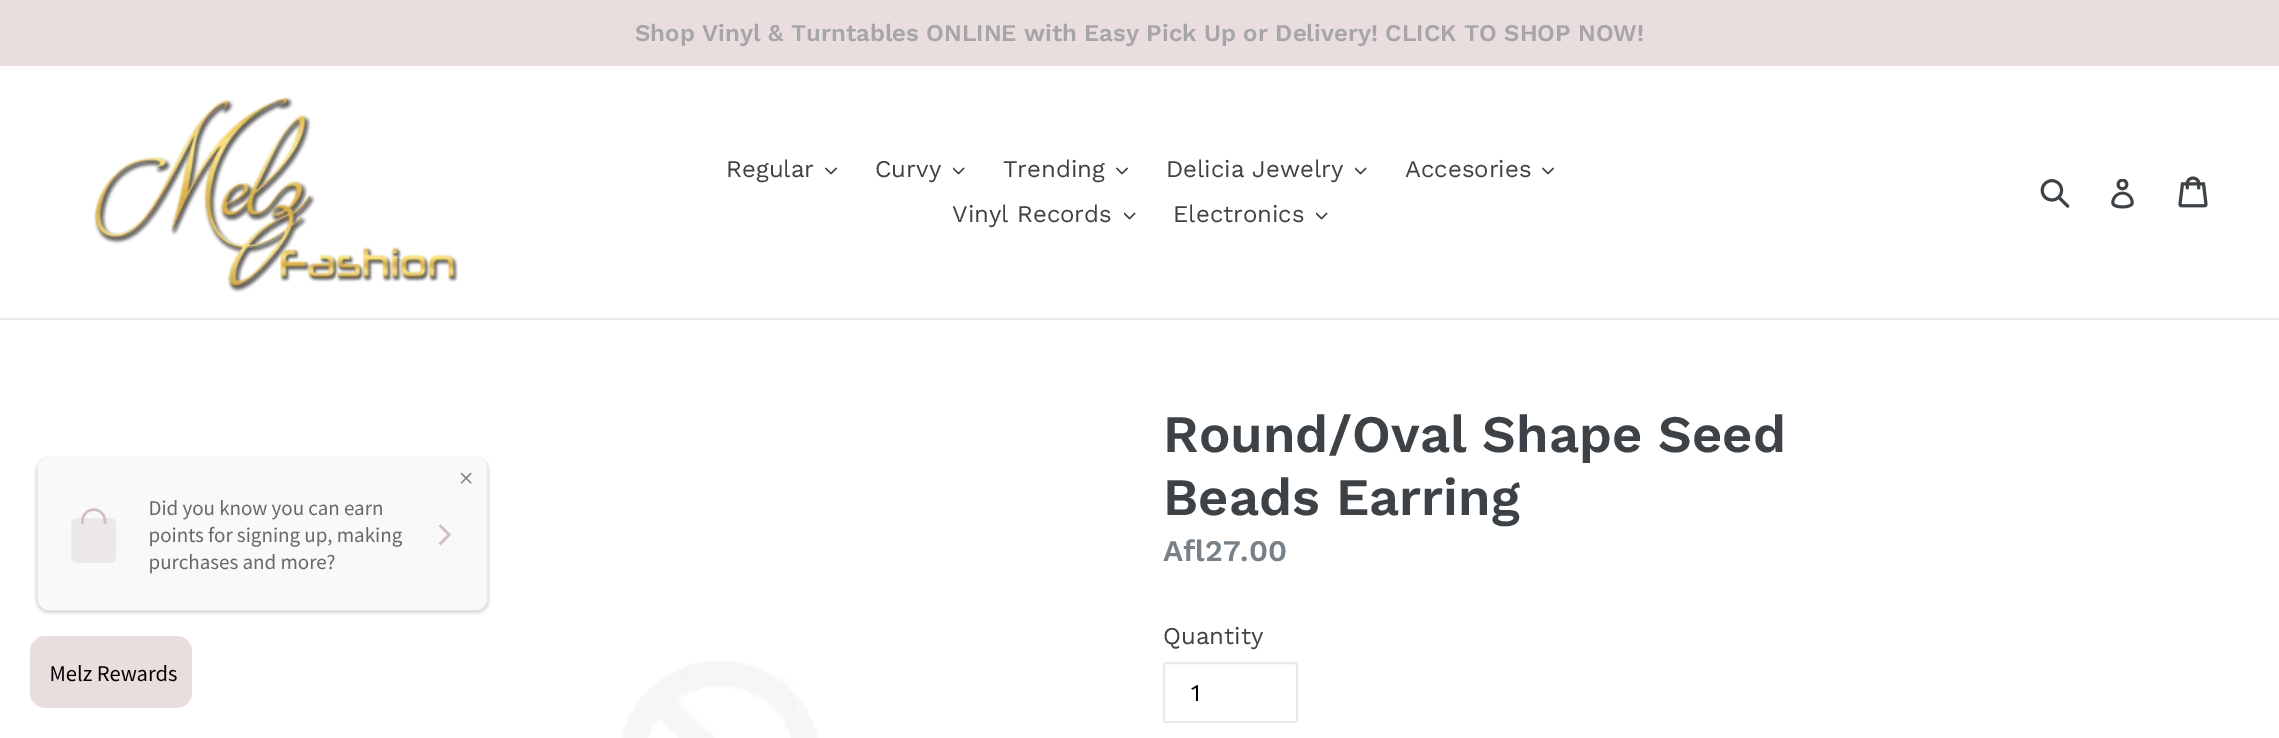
%!PS-Adobe-3.0
%%BoundingBox: 0 0 2279 738
%%LanguageLevel: 3
%%Pages: 1
%%EndComments
%%BeginProlog
/setink { 3 { 255 div 3 1 roll } repeat setrgbcolor } def
/usefont { [ exch dup neg 0 0 3 -1 roll 0 0 ] selectfont } def
/drawtext { setink usefont moveto show } def
/fillbox { setink rectfill } def
/rrect { 5 dict begin { /r /h /w /y /x } { exch def } forall
  x r add y moveto x w add y 2 copy h add r arct x w add y h add x 1 index r arct
  x y h add x y r arct x y 2 copy exch w add exch r arct closepath end } def
/drawimage { 5 dict begin { /h /w /y /x /name } { exch def } forall
  gsave x y translate w h scale
  w h 8 [w 0 0 h 0 0] name (r) file false 3 colorimage grestore end } def
%%EndProlog
%%BeginSetup
<< /PageSize [2279 738] >> setpagedevice
%%EndSetup
%%Page: 1 1
0 738 translate 1 -1 scale
4 setmiterlimit
0 0 2279 738 255 255 255 fillbox
0 0 2279 66 234 221 221 fillbox
(Shop Vinyl & Turntables ONLINE with Easy Pick Up or Delivery! CLICK TO SHOP NOW!) 635 41 /WorkSans-SemiBold 24 166 166 170 drawtext
0 318 2279 2 232 233 235 fillbox
(assets/img1.rgb) 94 97 364 196 drawimage
(Regular) 726 177 /WorkSans-Regular 24 61 66 70 drawtext
(assets/img2.rgb) 825 167 12 8 drawimage
(Curvy) 875 177 /WorkSans-Regular 24 61 66 70 drawtext
(assets/img3.rgb) 953 167 12 8 drawimage
(Trending) 1003 177 /WorkSans-Regular 24 61 66 70 drawtext
(assets/img2.rgb) 1116 167 12 8 drawimage
(Delicia Jewelry) 1166 177 /WorkSans-Regular 24 61 66 70 drawtext
(assets/img3.rgb) 1355 167 12 8 drawimage
(Accesories) 1405 177 /WorkSans-Regular 24 61 66 70 drawtext
(assets/img2.rgb) 1542 167 12 8 drawimage
(Vinyl Records) 952 222 /WorkSans-Regular 24 61 66 70 drawtext
(assets/img3.rgb) 1124 212 12 8 drawimage
(Electronics) 1173 222 /WorkSans-Regular 24 61 66 70 drawtext
(assets/img3.rgb) 1316 212 12 8 drawimage
(assets/img4.rgb) 2040 179 30 29 drawimage
(assets/img5.rgb) 2111 179 23 30 drawimage
(assets/img6.rgb) 2178 176 30 32 drawimage
(assets/img7.rgb) 34 456 457 159 drawimage
(assets/img8.rgb) 622 661 195 77 drawimage
(Round/Oval Shape Seed) 1163 452 /WorkSans-SemiBold 52.5 61 66 70 drawtext
(Beads Earring) 1163 515 /WorkSans-SemiBold 52.5 61 66 70 drawtext
(Afl27.00) 1163 561 /WorkSans-SemiBold 30 120 129 136 drawtext
(Quantity) 1163 644 /WorkSans-Regular 24 61 66 70 drawtext
232 233 235 setink
2 setlinewidth
1164 663 133 59 2 rrect stroke
(1) 1191 701 /WorkSans-Regular 24 0 0 0 drawtext
(assets/img9.rgb) 30 636 162 72 drawimage
showpage
%%EOF
